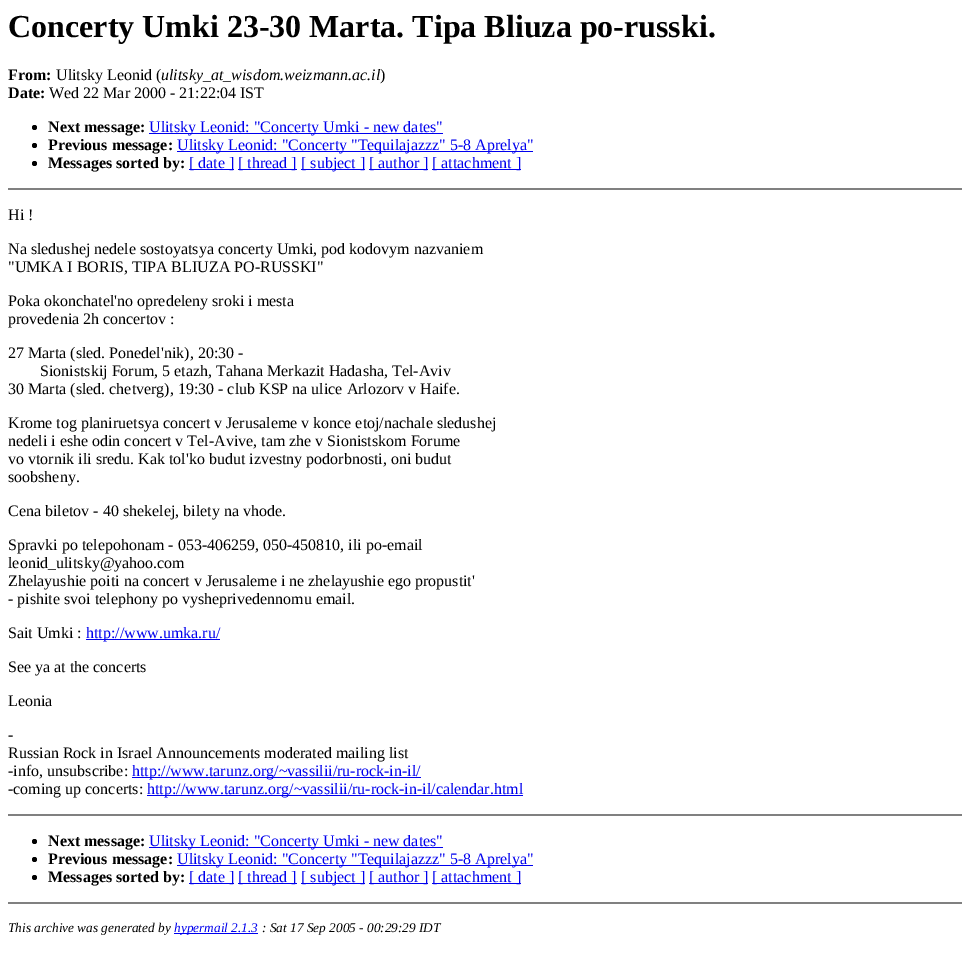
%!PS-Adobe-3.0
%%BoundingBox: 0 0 970 970
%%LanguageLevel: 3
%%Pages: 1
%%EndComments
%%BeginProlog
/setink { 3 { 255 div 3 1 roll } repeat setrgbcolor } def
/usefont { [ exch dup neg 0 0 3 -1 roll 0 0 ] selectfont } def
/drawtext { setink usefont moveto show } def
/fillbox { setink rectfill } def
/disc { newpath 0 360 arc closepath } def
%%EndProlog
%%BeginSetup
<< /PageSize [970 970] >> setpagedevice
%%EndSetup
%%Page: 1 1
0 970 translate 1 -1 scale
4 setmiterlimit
0 0 970 970 255 255 255 fillbox
(Concerty Umki 23-30 Marta. Tipa Bliuza po-russki.) 8 37 /LiberationSerif-Bold 32 0 0 0 drawtext
(From:) 8 80 /LiberationSerif-Bold 16 0 0 0 drawtext
(Ulitsky Leonid \() 56 80 /LiberationSerif-Regular 16 0 0 0 drawtext
(ulitsky_at_wisdom.weizmann.ac.il) 161 80 /LiberationSerif-Italic 16 0 0 0 drawtext
(\)) 380 80 /LiberationSerif-Regular 16 0 0 0 drawtext
(Date:) 8 98 /LiberationSerif-Bold 16 0 0 0 drawtext
(Wed 22 Mar 2000 - 21:22:04 IST) 49 98 /LiberationSerif-Regular 16 0 0 0 drawtext
34.5 127.5 2.5 disc fill
(Next message:) 48 132 /LiberationSerif-Bold 16 0 0 0 drawtext
149 133 294 1 0 0 238 fillbox
(Ulitsky Leonid: "Concerty Umki - new dates") 149 132 /LiberationSerif-Regular 16 0 0 238 drawtext
0 0 0 setink
34.5 145.5 2.5 disc fill
(Previous message:) 48 150 /LiberationSerif-Bold 16 0 0 0 drawtext
177 151 356 1 0 0 238 fillbox
(Ulitsky Leonid: "Concerty "Tequilajazzz" 5-8 Aprelya") 177 150 /LiberationSerif-Regular 16 0 0 238 drawtext
0 0 0 setink
34.5 163.5 2.5 disc fill
(Messages sorted by:) 48 168 /LiberationSerif-Bold 16 0 0 0 drawtext
189 169 45 1 0 0 238 fillbox
([ date ]) 189 168 /LiberationSerif-Regular 16 0 0 238 drawtext
238 169 59 1 0 0 238 fillbox
([ thread ]) 238 168 /LiberationSerif-Regular 16 0 0 238 drawtext
301 169 64 1 0 0 238 fillbox
([ subject ]) 301 168 /LiberationSerif-Regular 16 0 0 238 drawtext
369 169 59 1 0 0 238 fillbox
([ author ]) 369 168 /LiberationSerif-Regular 16 0 0 238 drawtext
432 169 89 1 0 0 238 fillbox
([ attachment ]) 432 168 /LiberationSerif-Regular 16 0 0 238 drawtext
8 188 954 2 128 128 128 fillbox
(Hi !) 8 220 /LiberationSerif-Regular 16 0 0 0 drawtext
(Na sledushej nedele sostoyatsya concerty Umki, pod kodovym nazvaniem) 8 254 /LiberationSerif-Regular 16 0 0 0 drawtext
("UMKA I BORIS, TIPA BLIUZA PO-RUSSKI") 8 272 /LiberationSerif-Regular 16 0 0 0 drawtext
(Poka okonchatel'no opredeleny sroki i mesta) 8 306 /LiberationSerif-Regular 16 0 0 0 drawtext
(provedenia 2h concertov :) 8 324 /LiberationSerif-Regular 16 0 0 0 drawtext
(27 Marta \(sled. Ponedel'nik\), 20:30 -) 8 358 /LiberationSerif-Regular 16 0 0 0 drawtext
(Sionistskij Forum, 5 etazh, Tahana Merkazit Hadasha, Tel-Aviv) 40 376 /LiberationSerif-Regular 16 0 0 0 drawtext
(30 Marta \(sled. chetverg\), 19:30 - club KSP na ulice Arlozorv v Haife.) 8 394 /LiberationSerif-Regular 16 0 0 0 drawtext
(Krome tog planiruetsya concert v Jerusaleme v konce etoj/nachale sledushej) 8 428 /LiberationSerif-Regular 16 0 0 0 drawtext
(nedeli i eshe odin concert v Tel-Avive, tam zhe v Sionistskom Forume) 8 446 /LiberationSerif-Regular 16 0 0 0 drawtext
(vo vtornik ili sredu. Kak tol'ko budut izvestny podorbnosti, oni budut) 8 464 /LiberationSerif-Regular 16 0 0 0 drawtext
(soobsheny.) 8 482 /LiberationSerif-Regular 16 0 0 0 drawtext
(Cena biletov - 40 shekelej, bilety na vhode.) 8 516 /LiberationSerif-Regular 16 0 0 0 drawtext
(Spravki po telepohonam - 053-406259, 050-450810, ili po-email) 8 550 /LiberationSerif-Regular 16 0 0 0 drawtext
(leonid_ulitsky@yahoo.com) 8 568 /LiberationSerif-Regular 16 0 0 0 drawtext
(Zhelayushie poiti na concert v Jerusaleme i ne zhelayushie ego propustit') 8 586 /LiberationSerif-Regular 16 0 0 0 drawtext
(- pishite svoi telephony po vysheprivedennomu email.) 8 604 /LiberationSerif-Regular 16 0 0 0 drawtext
(Sait Umki :) 8 638 /LiberationSerif-Regular 16 0 0 0 drawtext
86 639 134 1 0 0 238 fillbox
(http://www.umka.ru/) 86 638 /LiberationSerif-Regular 16 0 0 238 drawtext
(See ya at the concerts) 8 672 /LiberationSerif-Regular 16 0 0 0 drawtext
(Leonia) 8 706 /LiberationSerif-Regular 16 0 0 0 drawtext
(-) 8 740 /LiberationSerif-Regular 16 0 0 0 drawtext
(Russian Rock in Israel Announcements moderated mailing list) 8 758 /LiberationSerif-Regular 16 0 0 0 drawtext
(-info, unsubscribe:) 8 776 /LiberationSerif-Regular 16 0 0 0 drawtext
132 777 289 1 0 0 238 fillbox
(http://www.tarunz.org/~vassilii/ru-rock-in-il/) 132 776 /LiberationSerif-Regular 16 0 0 238 drawtext
(-coming up concerts:) 8 794 /LiberationSerif-Regular 16 0 0 0 drawtext
147 795 376 1 0 0 238 fillbox
(http://www.tarunz.org/~vassilii/ru-rock-in-il/calendar.html) 147 794 /LiberationSerif-Regular 16 0 0 238 drawtext
8 814 954 2 128 128 128 fillbox
0 0 0 setink
34.5 841.5 2.5 disc fill
(Next message:) 48 846 /LiberationSerif-Bold 16 0 0 0 drawtext
149 847 294 1 0 0 238 fillbox
(Ulitsky Leonid: "Concerty Umki - new dates") 149 846 /LiberationSerif-Regular 16 0 0 238 drawtext
0 0 0 setink
34.5 859.5 2.5 disc fill
(Previous message:) 48 864 /LiberationSerif-Bold 16 0 0 0 drawtext
177 865 356 1 0 0 238 fillbox
(Ulitsky Leonid: "Concerty "Tequilajazzz" 5-8 Aprelya") 177 864 /LiberationSerif-Regular 16 0 0 238 drawtext
0 0 0 setink
34.5 877.5 2.5 disc fill
(Messages sorted by:) 48 882 /LiberationSerif-Bold 16 0 0 0 drawtext
189 883 45 1 0 0 238 fillbox
([ date ]) 189 882 /LiberationSerif-Regular 16 0 0 238 drawtext
238 883 59 1 0 0 238 fillbox
([ thread ]) 238 882 /LiberationSerif-Regular 16 0 0 238 drawtext
301 883 64 1 0 0 238 fillbox
([ subject ]) 301 882 /LiberationSerif-Regular 16 0 0 238 drawtext
369 883 59 1 0 0 238 fillbox
([ author ]) 369 882 /LiberationSerif-Regular 16 0 0 238 drawtext
432 883 89 1 0 0 238 fillbox
([ attachment ]) 432 882 /LiberationSerif-Regular 16 0 0 238 drawtext
8 902 954 2 128 128 128 fillbox
(This archive was generated by) 8 932 /LiberationSerif-Italic 13.3 0 0 0 drawtext
174 933 84 1 0 0 238 fillbox
(hypermail 2.1.3) 174 932 /LiberationSerif-Italic 13.3 0 0 238 drawtext
(: Sat 17 Sep 2005 - 00:29:29 IDT) 262 932 /LiberationSerif-Italic 13.3 0 0 0 drawtext
showpage
%%EOF
